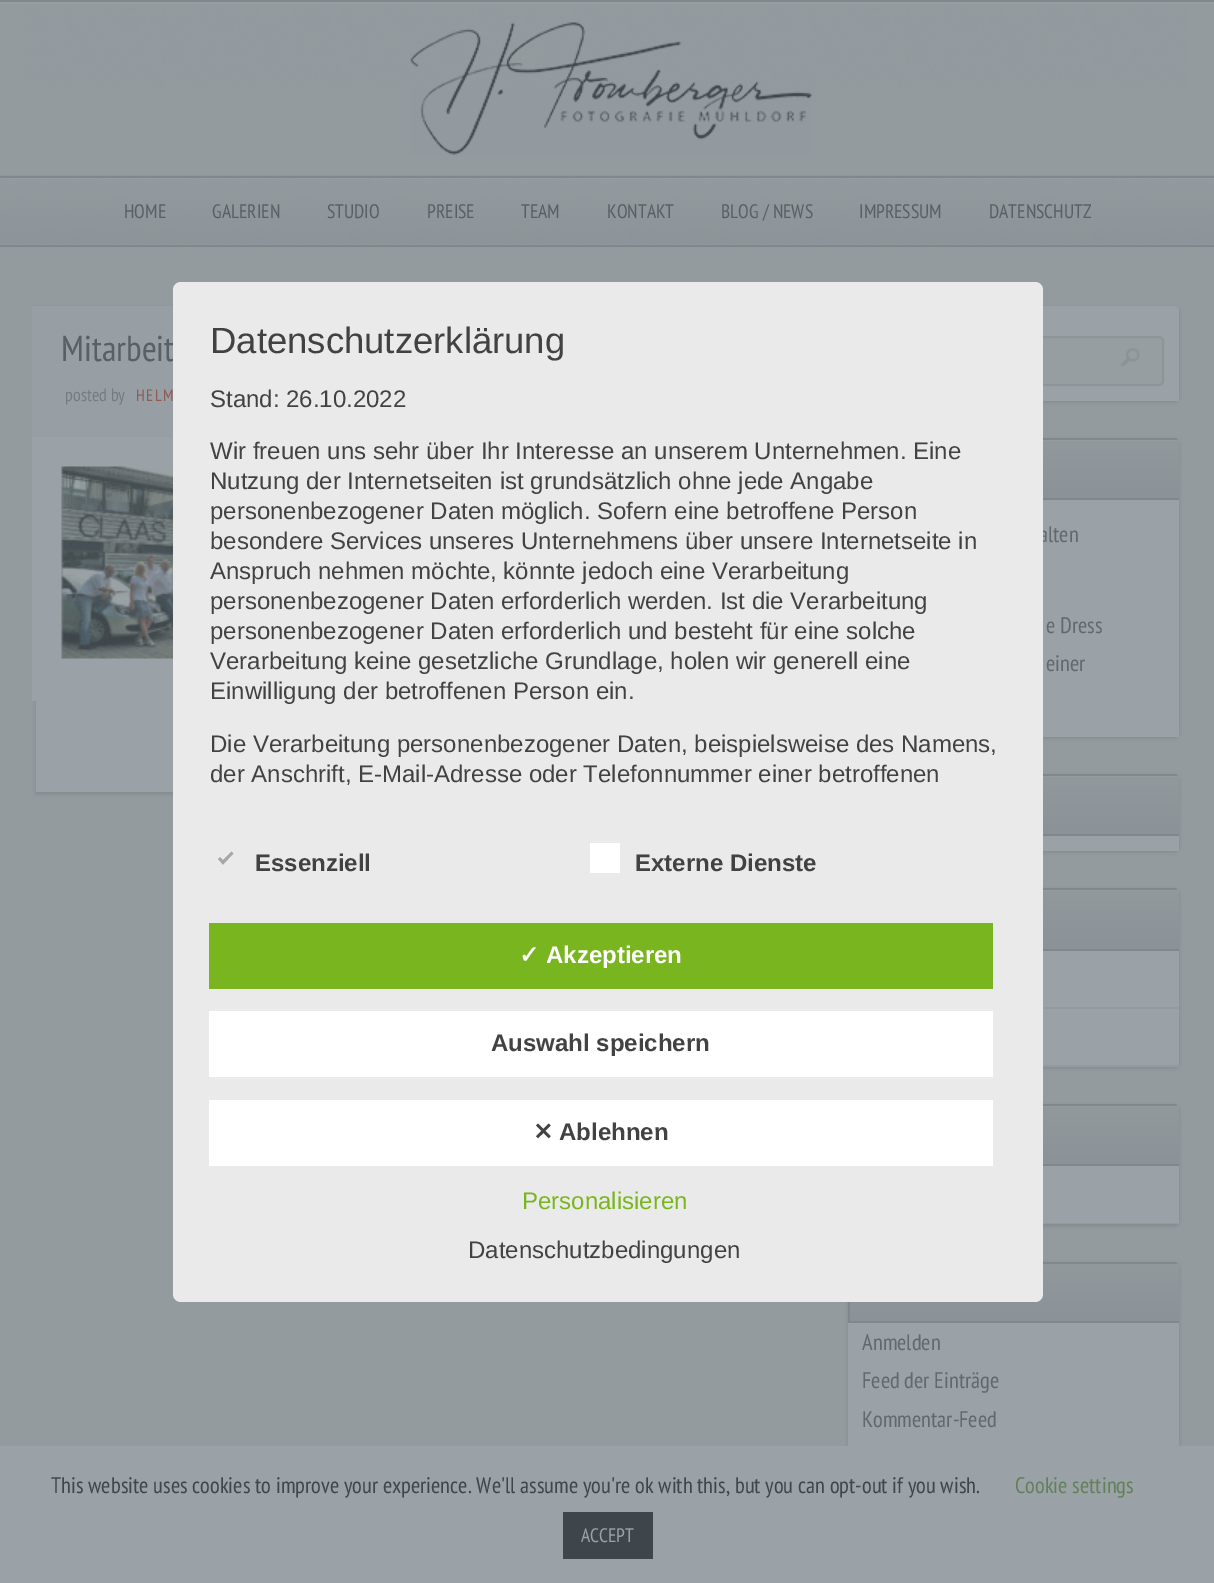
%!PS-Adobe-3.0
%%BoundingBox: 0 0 1214 1583
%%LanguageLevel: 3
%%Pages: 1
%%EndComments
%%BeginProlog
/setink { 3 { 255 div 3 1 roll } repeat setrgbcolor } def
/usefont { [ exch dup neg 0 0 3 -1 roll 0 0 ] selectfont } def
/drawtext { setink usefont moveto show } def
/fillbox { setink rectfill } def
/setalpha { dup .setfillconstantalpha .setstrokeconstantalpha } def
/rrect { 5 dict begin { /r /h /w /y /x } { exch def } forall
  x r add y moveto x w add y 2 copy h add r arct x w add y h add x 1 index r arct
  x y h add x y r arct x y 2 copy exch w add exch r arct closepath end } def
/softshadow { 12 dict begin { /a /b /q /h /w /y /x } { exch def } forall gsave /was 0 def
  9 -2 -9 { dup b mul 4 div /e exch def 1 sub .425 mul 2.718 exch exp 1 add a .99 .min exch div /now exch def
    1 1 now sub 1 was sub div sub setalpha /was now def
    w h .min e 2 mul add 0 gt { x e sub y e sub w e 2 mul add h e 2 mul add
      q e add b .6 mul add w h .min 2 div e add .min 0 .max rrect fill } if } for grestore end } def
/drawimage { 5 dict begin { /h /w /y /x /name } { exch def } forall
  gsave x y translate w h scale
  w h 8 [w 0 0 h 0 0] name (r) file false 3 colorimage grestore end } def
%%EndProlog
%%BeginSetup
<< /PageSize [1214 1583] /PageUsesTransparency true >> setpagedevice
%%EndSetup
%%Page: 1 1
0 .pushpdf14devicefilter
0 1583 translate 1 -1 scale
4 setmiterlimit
0 0 1214 1583 147 155 159 fillbox
(assets/img1.rgb) 24 8 1164 80 drawimage
0 2 1214 2 150 158 162 fillbox
0 0 1214 2 129 136 141 fillbox
0 245 1214 2 129 136 141 fillbox
(assets/img2.rgb) 410 22 402 133 drawimage
(assets/img3.rgb) 0 175 1214 70 drawimage
0.4 setalpha
0 178 1214 1 155 162 167 fillbox
1 setalpha
0 176 1214 2 129 136 141 fillbox
(HOME) 124 218 /PTSansNarrow-Regular 19.5 89 96 101 drawtext
(GALERIEN) 212 218 /PTSansNarrow-Regular 19.5 89 96 101 drawtext
(STUDIO) 327 218 /PTSansNarrow-Regular 19.5 89 96 101 drawtext
(PREISE) 427 218 /PTSansNarrow-Regular 19.5 89 96 101 drawtext
(TEAM) 521 218 /PTSansNarrow-Regular 19.5 89 96 101 drawtext
(KONTAKT) 607 218 /PTSansNarrow-Regular 19.5 89 96 101 drawtext
(BLOG / NEWS) 721 218 /PTSansNarrow-Regular 19.5 89 96 101 drawtext
(IMPRESSUM) 859 218 /PTSansNarrow-Regular 19.5 89 96 101 drawtext
(DATENSCHUTZ) 989 218 /PTSansNarrow-Regular 19.5 89 96 101 drawtext
63 70 75 setink
36 308 777 486 0 2 0.2 softshadow
36 701 137 91 155 162 167 fillbox
32 437 141 264 155 162 167 fillbox
32 306 141 129 152 159 164 fillbox
32 435 141 2 150 158 162 fillbox
(Mitarbeit) 61 361 /PTSansNarrow-Regular 36 89 96 101 drawtext
(posted by) 65 401 /PTSansNarrow-Regular 18 116 124 128 drawtext
/PTSansNarrow-Regular 16.5 usefont
143 91 83 setink
136 401 moveto 1.5 0 (HELM) ashow
(assets/img4.rgb) 61 466 112 193 drawimage
63 70 75 setink
848 308 331 94 5 2 0.2 softshadow
155 162 167 setink
853 306 moveto 1174 306 lineto 1177 306 1179 308 1179 311 curveto 1179 401 lineto 848 401 lineto 848 311 lineto 848 308 850 306 853 306 curveto closepath fill
150 158 162 setink
864 337 299 48 4 rrect gsave fill grestore
141 149 153 setink
2 setlinewidth
stroke
(assets/img5.rgb) 1120 348 20 19 drawimage
63 70 75 setink
848 440 331 298 5 2 0.2 softshadow
155 162 167 setink
853 438 moveto 1174 438 lineto 1177 438 1179 440 1179 443 curveto 1179 737 lineto 848 737 lineto 848 443 lineto 848 440 850 438 853 438 curveto closepath fill
gsave 1043 440 moveto 1179 440 lineto 1179 498 lineto 1043 498 lineto closepath clip newpath
<< /ShadingType 2 /ColorSpace /DeviceRGB /Coords [1015 440 1015 498] /Extend [true true] /Function << /FunctionType 2 /Domain [0 1] /C0 [0.569 0.6 0.616] /C1 [0.549 0.576 0.596] /N 1 >> >> shfill grestore
0.4 setalpha
852 441 moveto 1179 441 lineto 1178 440 lineto 852 440 lineto 850 440 849 442 849 444 curveto 849 442 850 441 852 441 curveto closepath fill
1 setalpha
129 136 141 setink
853 438 moveto 850 438 848 440 848 443 curveto 848 500 lineto 1179 500 lineto 1179 498 lineto 850 498 lineto 850 452 lineto 850 451 848 440 853 440 curveto 1178 440 lineto 1177 439 1176 438 1174 438 curveto closepath fill
(alten) 1039 542 /PTSansNarrow-Regular 22.5 97 105 109 drawtext
(e Dress) 1046 633 /PTSansNarrow-Regular 22.5 97 105 109 drawtext
(einer) 1046 671 /PTSansNarrow-Regular 22.5 97 105 109 drawtext
63 70 75 setink
848 776 331 76 5 2 0.2 softshadow
155 162 167 setink
853 774 moveto 1174 774 lineto 1177 774 1179 776 1179 779 curveto 1179 851 lineto 848 851 lineto 848 779 lineto 848 776 850 774 853 774 curveto closepath fill
gsave 1043 776 moveto 1179 776 lineto 1179 834 lineto 1043 834 lineto closepath clip newpath
<< /ShadingType 2 /ColorSpace /DeviceRGB /Coords [1015 776 1015 834] /Extend [true true] /Function << /FunctionType 2 /Domain [0 1] /C0 [0.569 0.6 0.616] /C1 [0.549 0.576 0.596] /N 1 >> >> shfill grestore
0.4 setalpha
852 777 moveto 850 777 849 778 849 780 curveto 849 778 850 776 852 776 curveto 1178 776 lineto 1179 777 lineto 1178 777 lineto closepath fill
1 setalpha
129 136 141 setink
853 774 moveto 850 774 848 776 848 779 curveto 848 836 lineto 1179 836 lineto 1179 834 lineto 850 834 lineto 850 788 lineto 850 787 848 776 853 776 curveto 1178 776 lineto 1177 775 1176 774 1174 774 curveto closepath fill
63 70 75 setink
848 890 331 178 5 2 0.2 softshadow
155 162 167 setink
853 888 moveto 1174 888 lineto 1177 888 1179 890 1179 893 curveto 1179 1067 lineto 848 1067 lineto 848 893 lineto 848 890 850 888 853 888 curveto closepath fill
gsave 1043 890 moveto 1179 890 lineto 1179 949 lineto 1043 949 lineto closepath clip newpath
<< /ShadingType 2 /ColorSpace /DeviceRGB /Coords [1015 890 1015 950] /Extend [true true] /Function << /FunctionType 2 /Domain [0 1] /C0 [0.569 0.6 0.616] /C1 [0.549 0.576 0.596] /N 1 >> >> shfill grestore
0.4 setalpha
852 891 moveto 850 891 849 892 849 894 curveto 849 892 850 890 852 890 curveto 1178 890 lineto 1179 891 lineto 1178 891 lineto closepath fill
1 setalpha
129 136 141 setink
853 888 moveto 850 888 848 890 848 893 curveto 848 951 lineto 1179 951 lineto 1179 949 lineto 850 949 lineto 850 902 lineto 850 901 848 890 853 890 curveto 1178 890 lineto 1177 889 1176 888 1174 888 curveto closepath fill
1043 1007 136 2 147 155 159 fillbox
1043 1065 136 2 147 155 159 fillbox
63 70 75 setink
848 1106 331 120 5 2 0.2 softshadow
155 162 167 setink
853 1104 moveto 1174 1104 lineto 1177 1104 1179 1106 1179 1109 curveto 1179 1224 lineto 848 1224 lineto 848 1109 lineto 848 1106 850 1104 853 1104 curveto closepath fill
gsave 1043 1106 moveto 1179 1106 lineto 1179 1164 lineto 1043 1164 lineto closepath clip newpath
<< /ShadingType 2 /ColorSpace /DeviceRGB /Coords [1015 1106 1015 1164] /Extend [true true] /Function << /FunctionType 2 /Domain [0 1] /C0 [0.569 0.6 0.616] /C1 [0.549 0.576 0.596] /N 1 >> >> shfill grestore
0.4 setalpha
852 1107 moveto 850 1107 849 1108 849 1110 curveto 849 1108 850 1106 852 1106 curveto 1178 1106 lineto 1179 1107 lineto 1178 1107 lineto closepath fill
1 setalpha
129 136 141 setink
853 1104 moveto 850 1104 848 1106 848 1109 curveto 848 1166 lineto 1179 1166 lineto 1179 1164 lineto 850 1164 lineto 850 1118 lineto 850 1117 848 1106 853 1106 curveto 1178 1106 lineto 1177 1105 1176 1104 1174 1104 curveto closepath fill
1043 1223 136 1 147 155 159 fillbox
63 70 75 setink
848 1263 331 230 5 2 0.2 softshadow
155 162 167 setink
853 1262 moveto 1174 1262 lineto 1177 1262 1179 1264 1179 1267 curveto 1179 1491 lineto 848 1491 lineto 848 1267 lineto 848 1264 850 1262 853 1262 curveto closepath fill
gsave
853 1262 moveto 1174 1262 lineto 1177 1262 1179 1264 1179 1267 curveto 1179 1491 lineto 848 1491 lineto 848 1267 lineto 848 1264 850 1262 853 1262 curveto closepath clip newpath
gsave 850 1263 moveto 1179 1263 lineto 1179 1321 lineto 850 1321 lineto closepath clip newpath
<< /ShadingType 2 /ColorSpace /DeviceRGB /Coords [1015 1263 1015 1322] /Extend [true true] /Function << /FunctionType 2 /Domain [0 1] /C0 [0.569 0.6 0.616] /C1 [0.549 0.576 0.596] /N 1 >> >> shfill grestore
grestore
129 136 141 setink
853 1262 moveto 850 1262 848 1264 848 1267 curveto 848 1323 lineto 1179 1323 lineto 1179 1321 lineto 850 1321 lineto 850 1276 lineto 850 1275 848 1264 853 1264 curveto 1178 1264 lineto 1177 1263 1176 1262 1174 1262 curveto closepath fill
(Anmelden) 862 1350 /PTSansNarrow-Regular 22.5 97 105 109 drawtext
(Feed der Einträge) 862 1388 /PTSansNarrow-Regular 22.5 97 105 109 drawtext
(Kommentar-Feed) 862 1427 /PTSansNarrow-Regular 22.5 97 105 109 drawtext
234 234 234 setink
173 282 870 1020 8 rrect fill
(Datenschutzerklärung) 210 353 /LiberationSans-Regular 36.5 66 66 66 drawtext
(Stand: 26.10.2022) 210 407 /LiberationSans-Regular 24 66 66 66 drawtext
(Wir freuen uns sehr über Ihr Interesse an unserem Unternehmen. Eine) 210 459 /LiberationSans-Regular 24 66 66 66 drawtext
(Nutzung der Internetseiten ist grundsätzlich ohne jede Angabe) 210 489 /LiberationSans-Regular 24 66 66 66 drawtext
(personenbezogener Daten möglich. Sofern eine betroffene Person) 210 519 /LiberationSans-Regular 24 66 66 66 drawtext
(besondere Services unseres Unternehmens über unsere Internetseite in) 210 549 /LiberationSans-Regular 24 66 66 66 drawtext
(Anspruch nehmen möchte, könnte jedoch eine Verarbeitung) 210 579 /LiberationSans-Regular 24 66 66 66 drawtext
(personenbezogener Daten erforderlich werden. Ist die Verarbeitung) 210 609 /LiberationSans-Regular 24 66 66 66 drawtext
(personenbezogener Daten erforderlich und besteht für eine solche) 210 639 /LiberationSans-Regular 24 66 66 66 drawtext
(Verarbeitung keine gesetzliche Grundlage, holen wir generell eine) 210 669 /LiberationSans-Regular 24 66 66 66 drawtext
(Einwilligung der betroffenen Person ein.) 210 699 /LiberationSans-Regular 24 66 66 66 drawtext
(Die Verarbeitung personenbezogener Daten, beispielsweise des Namens,) 210 752 /LiberationSans-Regular 24 66 66 66 drawtext
(der Anschrift, E-Mail-Adresse oder Telefonnummer einer betroffenen) 210 782 /LiberationSans-Regular 24 66 66 66 drawtext
167 167 167 setink
231.5 851.5 moveto 233.5 853.5 lineto 223 864.5 lineto 221 862 lineto closepath fill
220 857 moveto 225 862 lineto 223 864.5 lineto 218 859 lineto closepath fill
(Essenziell) 255 871 /LiberationSans-Bold 24 66 66 66 drawtext
590 843 30 30 255 255 255 fillbox
(Externe Dienste) 635 871 /LiberationSans-Bold 24 66 66 66 drawtext
209 923 784 66 121 181 31 fillbox
(✓) 519 963 /DejaVuSans-Bold 24 255 255 255 drawtext
(Akzeptieren) 546 963 /LiberationSans-Bold 24 255 255 255 drawtext
209 1011 784 66 255 255 255 fillbox
(Auswahl speichern) 491 1051 /LiberationSans-Bold 24 66 66 66 drawtext
209 1100 784 66 255 255 255 fillbox
(✕) 533 1140 /DejaVuSans-Bold 24 66 66 66 drawtext
(Ablehnen) 559 1140 /LiberationSans-Bold 24 66 66 66 drawtext
(Personalisieren) 522 1209 /LiberationSans-Regular 24 121 181 31 drawtext
(Datenschutzbedingungen) 468 1258 /LiberationSans-Regular 24 66 66 66 drawtext
0 1446 1214 137 155 162 167 fillbox
(This website uses cookies to improve your experience. We'll assume you're ok with this, but you can opt-out if you wish.) 51 1493 /PTSansNarrow-Regular 22.5 63 70 75 drawtext
(Cookie settings) 1015 1493 /PTSansNarrow-Regular 22.5 98 129 90 drawtext
563 1512 90 47 63 70 75 fillbox
(ACCEPT) 581 1542 /PTSansNarrow-Regular 19.5 155 162 167 drawtext
.poppdf14devicefilter showpage
%%EOF
